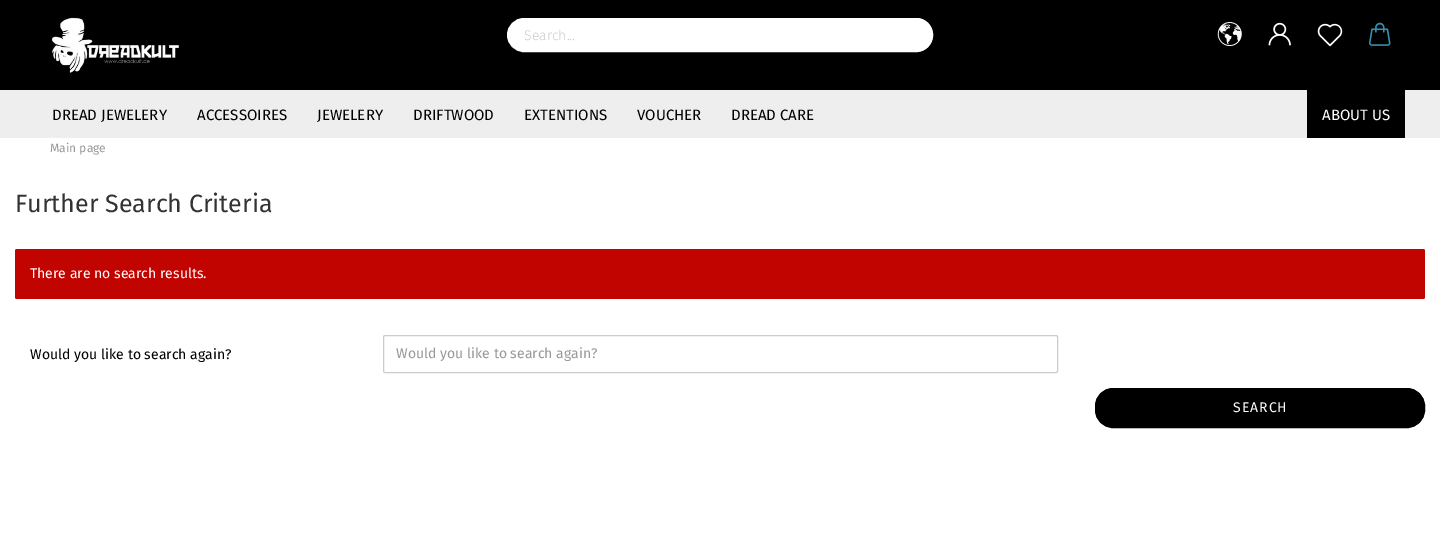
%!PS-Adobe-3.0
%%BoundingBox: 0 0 1440 548
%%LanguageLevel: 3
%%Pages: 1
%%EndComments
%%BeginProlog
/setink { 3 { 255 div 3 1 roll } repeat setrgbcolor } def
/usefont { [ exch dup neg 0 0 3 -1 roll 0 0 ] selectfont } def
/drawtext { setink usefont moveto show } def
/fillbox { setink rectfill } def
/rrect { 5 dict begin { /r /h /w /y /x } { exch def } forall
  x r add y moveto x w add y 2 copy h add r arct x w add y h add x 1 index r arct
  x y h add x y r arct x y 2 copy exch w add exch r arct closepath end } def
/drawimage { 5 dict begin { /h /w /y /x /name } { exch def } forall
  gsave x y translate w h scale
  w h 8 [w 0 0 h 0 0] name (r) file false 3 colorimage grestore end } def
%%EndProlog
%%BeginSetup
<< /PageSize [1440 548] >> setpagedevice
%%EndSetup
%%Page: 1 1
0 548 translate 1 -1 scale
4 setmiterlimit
0 0 1440 548 255 255 255 fillbox
0 0 1440 90 0 0 0 fillbox
(assets/img1.rgb) 50 17 129 56 drawimage
255 255 255 setink
508 19 424 32 16 rrect gsave fill grestore
2 setlinewidth
stroke
(Search...) 524 40 /FiraSans-Light 14 204 204 204 drawtext
255 255 255 setink
883 18 moveto 916 18 lineto 925.5 18 933 25.5 933 35 curveto 933 44.5 925.5 52 916 52 curveto 883 52 lineto closepath fill
(assets/img2.rgb) 1217 22 25 24 drawimage
(assets/img3.rgb) 1268 22 23 24 drawimage
(assets/img4.rgb) 1317 23 26 24 drawimage
(assets/img5.rgb) 1368 22 23 24 drawimage
0 90 1440 48 238 238 238 fillbox
(DREAD JEWELERY) 52 120 /FiraSans-Regular 15 0 0 0 drawtext
(ACCESSOIRES) 197 120 /FiraSans-Regular 15 0 0 0 drawtext
(JEWELERY) 317 120 /FiraSans-Regular 15 0 0 0 drawtext
(DRIFTWOOD) 413 120 /FiraSans-Regular 15 0 0 0 drawtext
(EXTENTIONS) 524 120 /FiraSans-Regular 15 0 0 0 drawtext
(VOUCHER) 637 120 /FiraSans-Regular 15 0 0 0 drawtext
(DREAD CARE) 731 120 /FiraSans-Regular 15 0 0 0 drawtext
1307 90 98 48 0 0 0 fillbox
(ABOUT US) 1322 120 /FiraSans-Regular 15 255 255 255 drawtext
(Main page) 50 152 /FiraSans-Regular 12 153 153 153 drawtext
(Further Search Criteria) 15 212 /FiraSans-Regular 25 51 51 51 drawtext
194 4 0 setink
15 249 1410 50 2 rrect fill
(There are no search results.) 30 278 /FiraSans-Regular 14 255 255 255 drawtext
(Would you like to search again?) 30 359 /FiraSans-Regular 14 0 0 0 drawtext
204 204 204 setink
1 setlinewidth
383.5 335.5 674 37 1.5 rrect stroke
(Would you like to search again?) 396 358 /FiraSans-Regular 14 153 153 153 drawtext
0 0 0 setink
1095.5 388.5 329 39 17.5 rrect gsave fill grestore
stroke
255 255 255 setink
1233 412 moveto 1 0 (SEARCH) ashow
showpage
%%EOF
